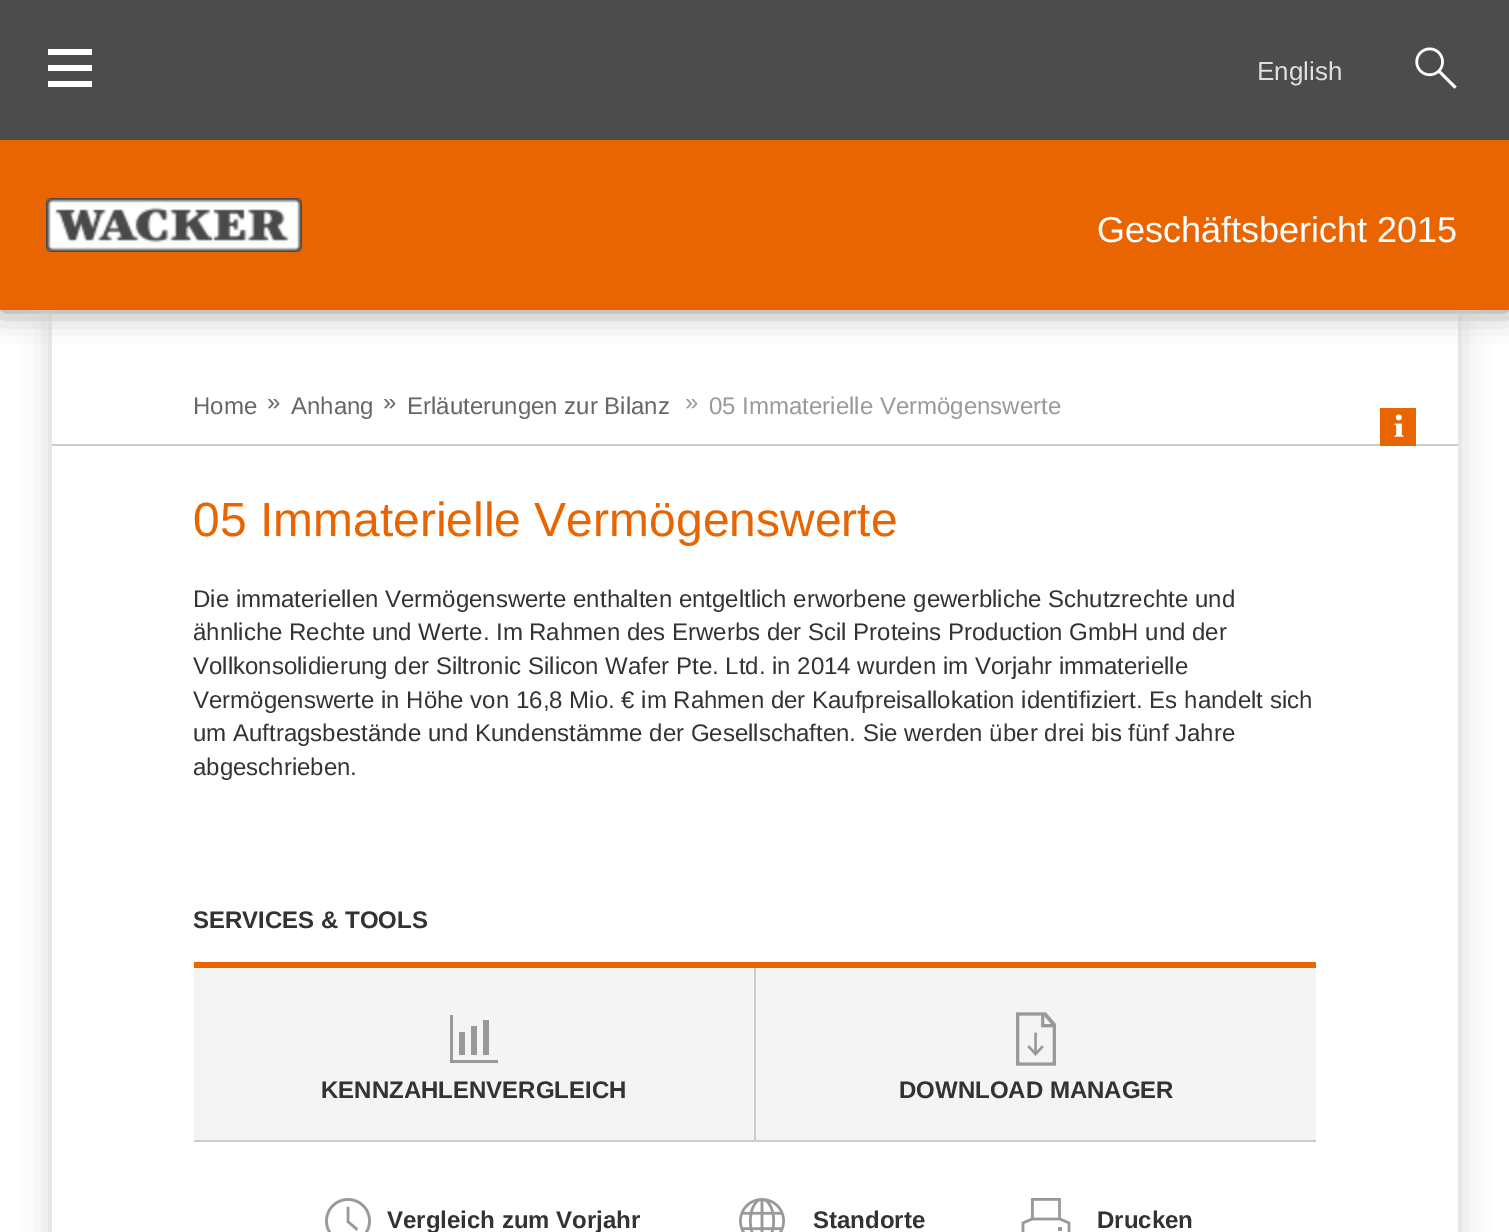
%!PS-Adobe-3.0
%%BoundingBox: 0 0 1509 1232
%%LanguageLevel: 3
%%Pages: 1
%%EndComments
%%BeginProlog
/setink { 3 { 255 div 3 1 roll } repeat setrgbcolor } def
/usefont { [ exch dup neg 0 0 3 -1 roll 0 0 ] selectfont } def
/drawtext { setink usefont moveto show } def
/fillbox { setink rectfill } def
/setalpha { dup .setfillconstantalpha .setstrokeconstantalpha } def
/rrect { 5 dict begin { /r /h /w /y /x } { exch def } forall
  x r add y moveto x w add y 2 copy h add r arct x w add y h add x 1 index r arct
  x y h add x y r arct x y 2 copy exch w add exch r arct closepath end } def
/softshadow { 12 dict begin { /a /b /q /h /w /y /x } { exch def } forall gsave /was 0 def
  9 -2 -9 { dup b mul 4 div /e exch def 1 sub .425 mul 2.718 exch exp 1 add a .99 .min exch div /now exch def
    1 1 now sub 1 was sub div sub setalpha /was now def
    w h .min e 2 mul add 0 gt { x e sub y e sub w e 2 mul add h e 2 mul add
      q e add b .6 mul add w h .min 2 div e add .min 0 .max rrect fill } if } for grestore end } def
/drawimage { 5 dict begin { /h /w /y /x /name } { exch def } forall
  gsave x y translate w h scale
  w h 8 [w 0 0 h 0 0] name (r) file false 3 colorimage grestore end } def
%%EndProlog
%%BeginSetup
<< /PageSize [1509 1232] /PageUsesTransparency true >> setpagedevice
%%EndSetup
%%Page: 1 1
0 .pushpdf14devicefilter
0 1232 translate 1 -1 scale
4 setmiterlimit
0 0 1509 1232 255 255 255 fillbox
136 136 136 setink
0 140 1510 170 0 15 1 softshadow
0 0 1509 140 76 76 76 fillbox
255 255 255 setink
48 49 moveto 48 55 lineto 92 55 lineto 92 49 lineto closepath 48 71 moveto 92 71 lineto 92 65 lineto 48 65 lineto closepath 48 87 moveto 92 87 lineto 92 81 lineto 48 81 lineto closepath fill
(English) 1257 80 /LiberationSans-Regular 26 224 224 224 drawtext
(assets/img1.rgb) 1415 47 42 42 drawimage
gsave
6 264 moveto 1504 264 lineto 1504 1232 lineto 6 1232 lineto closepath 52 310 moveto 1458 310 lineto 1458 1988 lineto 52 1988 lineto closepath eoclip newpath
204 204 204 setink
52 310 1406 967 0 15 1 softshadow
grestore
0 140 1509 170 233 101 1 fillbox
(assets/img2.rgb) 46 198 256 54 drawimage
(Geschäftsbericht 2015) 1097 242 /LiberationSans-Regular 36 255 255 255 drawtext
(Home) 193 414 /LiberationSans-Regular 24 102 102 102 drawtext
(») 267 410 /LiberationSans-Regular 24 102 102 102 drawtext
(Anhang) 291 414 /LiberationSans-Regular 24 102 102 102 drawtext
(») 383 410 /LiberationSans-Regular 24 102 102 102 drawtext
(Erläuterungen zur Bilanz) 407 414 /LiberationSans-Regular 24 102 102 102 drawtext
(») 685 410 /LiberationSans-Regular 24 153 153 153 drawtext
(05 Immaterielle Vermögenswerte) 709 414 /LiberationSans-Regular 24 153 153 153 drawtext
52 444 1406 2 204 204 204 fillbox
1380 408 36 38 233 101 1 fillbox
(assets/img3.rgb) 1394 414 10 23 drawimage
(05 Immaterielle Vermögenswerte) 193 536 /LiberationSans-Regular 48 233 101 1 drawtext
(Die immateriellen Vermögenswerte enthalten entgeltlich erworbene gewerbliche Schutzrechte und) 193 607 /LiberationSans-Regular 24 51 51 51 drawtext
(ähnliche Rechte und Werte. Im Rahmen des Erwerbs der Scil Proteins Production GmbH und der) 193 640 /LiberationSans-Regular 24 51 51 51 drawtext
(Vollkonsolidierung der Siltronic Silicon Wafer Pte. Ltd. in 2014 wurden im Vorjahr immaterielle) 193 674 /LiberationSans-Regular 24 51 51 51 drawtext
(Vermögenswerte in Höhe von 16,8 Mio. € im Rahmen der Kaufpreisallokation identiﬁziert. Es handelt sich) 193 708 /LiberationSans-Regular 24 51 51 51 drawtext
(um Auftragsbestände und Kundenstämme der Gesellschaften. Sie werden über drei bis fünf Jahre) 193 741 /LiberationSans-Regular 24 51 51 51 drawtext
(abgeschrieben.) 193 775 /LiberationSans-Regular 24 51 51 51 drawtext
(SERVICES & TOOLS) 193 928 /LiberationSans-Bold 24 51 51 51 drawtext
194 962 1122 6 233 101 1 fillbox
194 968 1122 172 244 244 244 fillbox
194 1140 1122 2 204 204 204 fillbox
153 153 153 setink
498 1063 moveto 450 1063 lineto 450 1015 lineto 453 1015 lineto 453 1060 lineto 498 1060 lineto closepath 465 1032 moveto 459 1032 lineto 459 1055 lineto 465 1055 lineto closepath 477 1026 moveto 471 1026 lineto 471 1055 lineto 477 1055 lineto closepath 489 1020 moveto 483 1020 lineto 483 1055 lineto 489 1055 lineto closepath fill
(KENNZAHLENVERGLEICH) 321 1098 /LiberationSans-Bold 24 51 51 51 drawtext
754 968 2 172 204 204 204 fillbox
(assets/img4.rgb) 1016 1012 40 54 drawimage
(DOWNLOAD MANAGER) 899 1098 /LiberationSans-Bold 24 51 51 51 drawtext
(assets/img5.rgb) 325 1198 46 34 drawimage
(Vergleich zum Vorjahr) 387 1228 /LiberationSans-Bold 24 51 51 51 drawtext
(assets/img6.rgb) 739 1198 46 34 drawimage
(Standorte) 813 1228 /LiberationSans-Bold 24 51 51 51 drawtext
(assets/img7.rgb) 1021 1198 50 34 drawimage
(Drucken) 1097 1228 /LiberationSans-Bold 24 51 51 51 drawtext
.poppdf14devicefilter showpage
%%EOF
